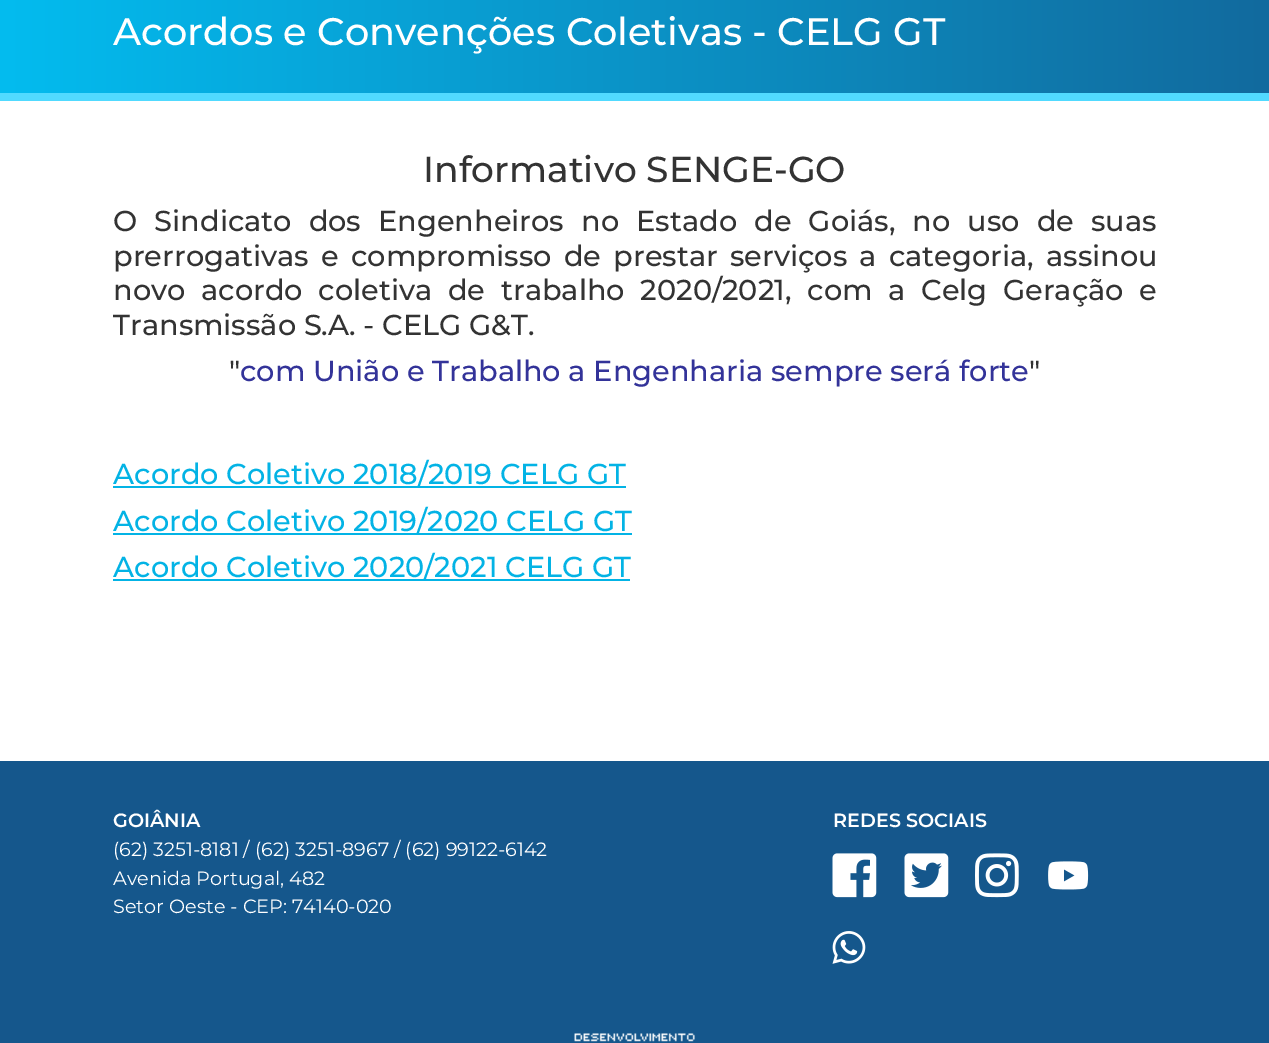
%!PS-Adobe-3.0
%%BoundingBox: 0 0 1269 1043
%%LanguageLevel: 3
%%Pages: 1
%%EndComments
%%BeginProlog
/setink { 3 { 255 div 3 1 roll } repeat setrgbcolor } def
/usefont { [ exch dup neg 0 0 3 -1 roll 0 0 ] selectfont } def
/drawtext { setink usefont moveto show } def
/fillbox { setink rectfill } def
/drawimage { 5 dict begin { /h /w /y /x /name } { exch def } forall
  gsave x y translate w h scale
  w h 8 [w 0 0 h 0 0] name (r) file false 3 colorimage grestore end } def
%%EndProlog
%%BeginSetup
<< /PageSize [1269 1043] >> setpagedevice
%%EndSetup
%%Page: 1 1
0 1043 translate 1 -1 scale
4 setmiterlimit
0 0 1269 1043 255 255 255 fillbox
gsave 0 0 moveto 1269 0 lineto 1269 93 lineto 0 93 lineto closepath clip newpath
<< /ShadingType 2 /ColorSpace /DeviceRGB /Coords [1269 33 0 33] /Extend [true true] /Function << /FunctionType 2 /Domain [0 1] /C0 [0.071 0.416 0.62] /C1 [0.012 0.737 0.937] /N 1 >> >> shfill grestore
0 93 1269 8 81 218 255 fillbox
(Acordos e Convenções Coletivas - CELG GT) 113 45 /Montserrat-Medium 38.4 255 255 255 drawtext
(Informativo SENGE-GO) 423 182 /Montserrat-Medium 36 51 51 51 drawtext
/Montserrat-Medium 28.8 usefont
113 231 moveto 9.4 0 32 (O Sindicato dos Engenheiros no Estado de Goiás, no uso de suas) widthshow
113 266 moveto 4.5 0 32 (prerrogativas e compromisso de prestar serviços a categoria, assinou) widthshow
113 300 moveto 8 0 32 (novo acordo coletiva de trabalho 2020/2021, com a Celg Geração e) widthshow
(Transmissão S.A. - CELG G&T.) 113 335 /Montserrat-Medium 28.8 51 51 51 drawtext
(") 229 381 /Montserrat-Medium 28.8 51 51 51 drawtext
(com União e Trabalho a Engenharia sempre será forte) 240 381 /Montserrat-Medium 28.8 51 51 153 drawtext
(") 1029 381 /Montserrat-Medium 28.8 51 51 51 drawtext
113 486 513 2 3 179 229 fillbox
(Acordo Coletivo 2018/2019 CELG GT) 113 484 /Montserrat-Medium 28.8 3 179 229 drawtext
113 533 519 2 3 179 229 fillbox
(Acordo Coletivo 2019/2020 CELG GT) 113 531 /Montserrat-Medium 28.8 3 179 229 drawtext
113 579 517 2 3 179 229 fillbox
(Acordo Coletivo 2020/2021 CELG GT) 113 577 /Montserrat-Medium 28.8 3 179 229 drawtext
0 761 1269 282 21 87 140 fillbox
(GOIÂNIA) 113 827 /Montserrat-SemiBold 19.2 255 255 255 drawtext
(\(62\) 3251-8181 / \(62\) 3251-8967 / \(62\) 99122-6142) 113 856 /Montserrat-Regular 19.2 255 255 255 drawtext
(Avenida Portugal, 482) 113 885 /Montserrat-Regular 19.2 255 255 255 drawtext
(Setor Oeste - CEP: 74140-020) 113 913 /Montserrat-Regular 19.2 255 255 255 drawtext
(REDES SOCIAIS) 833 827 /Montserrat-SemiBold 19.2 255 255 255 drawtext
(assets/img1.rgb) 832 853 45 45 drawimage
(assets/img2.rgb) 904 853 45 45 drawimage
(assets/img3.rgb) 975 853 44 45 drawimage
(assets/img4.rgb) 1048 861 41 29 drawimage
(assets/img5.rgb) 832 931 34 33 drawimage
(assets/img6.rgb) 574 1033 121 9 drawimage
showpage
%%EOF
